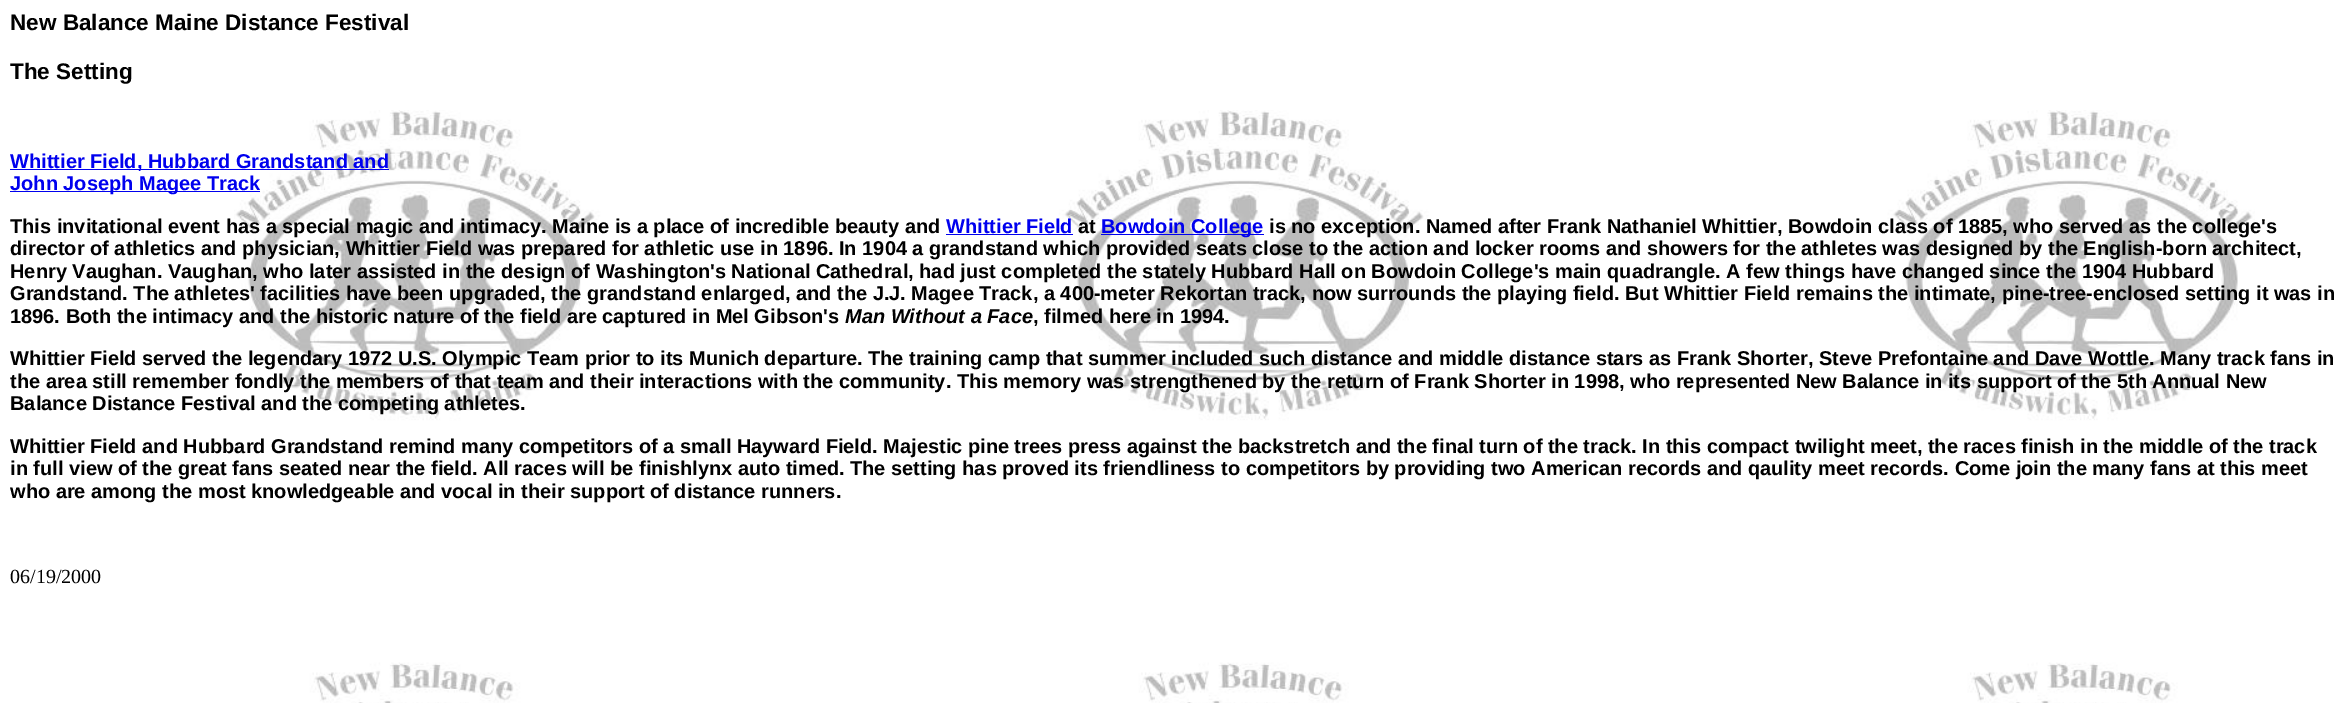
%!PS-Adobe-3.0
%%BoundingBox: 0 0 2346 703
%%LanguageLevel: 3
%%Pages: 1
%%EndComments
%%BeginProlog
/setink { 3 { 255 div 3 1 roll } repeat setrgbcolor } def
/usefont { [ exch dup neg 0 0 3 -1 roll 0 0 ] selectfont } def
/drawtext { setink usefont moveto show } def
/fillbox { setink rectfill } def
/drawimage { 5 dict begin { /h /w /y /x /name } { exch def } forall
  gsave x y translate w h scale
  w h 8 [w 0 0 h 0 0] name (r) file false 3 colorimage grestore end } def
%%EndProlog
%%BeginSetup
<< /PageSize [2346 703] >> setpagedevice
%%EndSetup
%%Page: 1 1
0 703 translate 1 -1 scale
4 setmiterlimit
0 0 2346 703 255 255 255 fillbox
(assets/img1.rgb) 234 110 2021 593 drawimage
(New Balance Maine Distance Festival) 10 30 /LiberationSans-Bold 22.5 0 0 0 drawtext
(The Setting) 10 79 /LiberationSans-Bold 22.5 0 0 0 drawtext
10 169 379 1 0 0 238 fillbox
(Whittier Field, Hubbard Grandstand and) 10 168 /LiberationSans-Bold 20 0 0 238 drawtext
10 191 250 1 0 0 238 fillbox
(John Joseph Magee Track) 10 190 /LiberationSans-Bold 20 0 0 238 drawtext
(This invitational event has a special magic and intimacy. Maine is a place of incredible beauty and) 10 233 /LiberationSans-Bold 20 0 0 0 drawtext
(Whittier Field) 946 233 /LiberationSans-Bold 20 0 0 238 drawtext
946 234 127 1 0 0 238 fillbox
(at) 1078 233 /LiberationSans-Bold 20 0 0 0 drawtext
1101 234 163 1 0 0 238 fillbox
(Bowdoin College) 1101 233 /LiberationSans-Bold 20 0 0 238 drawtext
(is no exception. Named after Frank Nathaniel Whittier, Bowdoin class of 1885, who served as the college's) 1269 233 /LiberationSans-Bold 20 0 0 0 drawtext
(director of athletics and physician, Whittier Field was prepared for athletic use in 1896. In 1904 a grandstand which provided seats close to the action and locker rooms and showers for the athletes was designed by the English-born architect,) 10 255 /LiberationSans-Bold 20 0 0 0 drawtext
(Henry Vaughan. Vaughan, who later assisted in the design of Washington's National Cathedral, had just completed the stately Hubbard Hall on Bowdoin College's main quadrangle. A few things have changed since the 1904 Hubbard) 10 278 /LiberationSans-Bold 20 0 0 0 drawtext
(Grandstand. The athletes' facilities have been upgraded, the grandstand enlarged, and the J.J. Magee Track, a 400-meter Rekortan track, now surrounds the playing field. But Whittier Field remains the intimate, pine-tree-enclosed setting it was in) 10 300 /LiberationSans-Bold 20 0 0 0 drawtext
(1896. Both the intimacy and the historic nature of the field are captured in Mel Gibson's) 10 323 /LiberationSans-Bold 20 0 0 0 drawtext
(Man Without a Face) 845 323 /LiberationSans-BoldItalic 20 0 0 0 drawtext
(, filmed here in 1994.) 1033 323 /LiberationSans-Bold 20 0 0 0 drawtext
(Whittier Field served the legendary 1972 U.S. Olympic Team prior to its Munich departure. The training camp that summer included such distance and middle distance stars as Frank Shorter, Steve Prefontaine and Dave Wottle. Many track fans in) 10 365 /LiberationSans-Bold 20 0 0 0 drawtext
(the area still remember fondly the members of that team and their interactions with the community. This memory was strengthened by the return of Frank Shorter in 1998, who represented New Balance in its support of the 5th Annual New) 10 388 /LiberationSans-Bold 20 0 0 0 drawtext
(Balance Distance Festival and the competing athletes.) 10 410 /LiberationSans-Bold 20 0 0 0 drawtext
(Whittier Field and Hubbard Grandstand remind many competitors of a small Hayward Field. Majestic pine trees press against the backstretch and the final turn of the track. In this compact twilight meet, the races finish in the middle of the track) 10 453 /LiberationSans-Bold 20 0 0 0 drawtext
(in full view of the great fans seated near the field. All races will be finishlynx auto timed. The setting has proved its friendliness to competitors by providing two American records and qaulity meet records. Come join the many fans at this meet) 10 475 /LiberationSans-Bold 20 0 0 0 drawtext
(who are among the most knowledgeable and vocal in their support of distance runners.) 10 498 /LiberationSans-Bold 20 0 0 0 drawtext
(06/19/2000) 10 583 /LiberationSerif-Regular 20 0 0 0 drawtext
showpage
%%EOF
